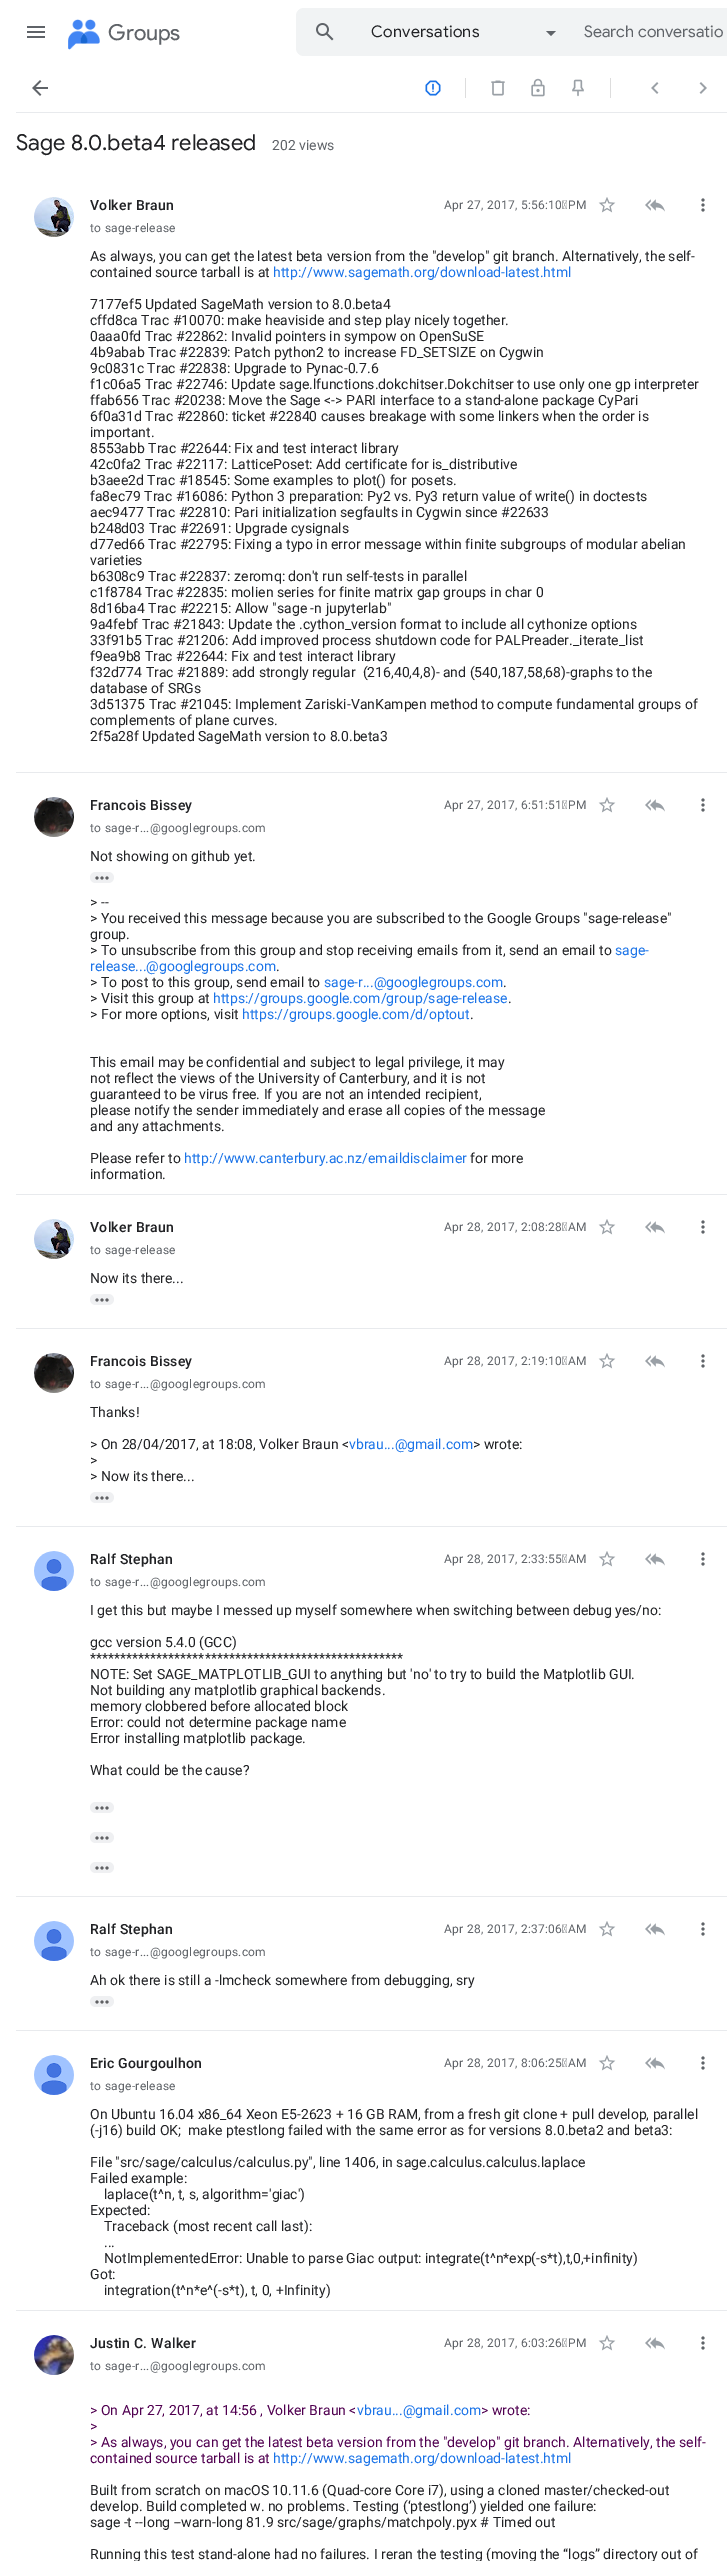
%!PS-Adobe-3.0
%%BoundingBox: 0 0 727 2561
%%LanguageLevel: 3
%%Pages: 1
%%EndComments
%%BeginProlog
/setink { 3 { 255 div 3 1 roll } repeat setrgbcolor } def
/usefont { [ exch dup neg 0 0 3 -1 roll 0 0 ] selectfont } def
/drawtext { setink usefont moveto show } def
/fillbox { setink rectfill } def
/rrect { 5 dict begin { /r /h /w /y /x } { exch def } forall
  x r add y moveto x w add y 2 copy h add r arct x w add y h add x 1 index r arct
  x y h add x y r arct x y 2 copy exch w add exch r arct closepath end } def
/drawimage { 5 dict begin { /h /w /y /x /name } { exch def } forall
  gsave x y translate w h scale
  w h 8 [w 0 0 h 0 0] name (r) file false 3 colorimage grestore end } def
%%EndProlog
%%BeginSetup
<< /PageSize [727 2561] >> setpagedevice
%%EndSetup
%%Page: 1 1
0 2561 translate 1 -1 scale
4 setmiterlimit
0 0 727 2561 255 255 255 fillbox
(assets/img1.rgb) 27 26 18 12 drawimage
(assets/img2.rgb) 68 19 32 31 drawimage
(Groups) 108 40 /ProductSans-Regular 22 95 99 104 drawtext
241 243 244 setink
296 8 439 48 8 rrect fill
(assets/img3.rgb) 316 23 18 18 drawimage
/GoogleSans-Regular 16 usefont
32 33 36 setink
371 37 moveto 0.25 0 (Conversations) ashow
95 99 104 setink
546 31 moveto 556 31 lineto 551 36 lineto closepath fill
(Search conversatio) 584 37 /GoogleSans-Regular 16 95 99 104 drawtext
16 112 711 1 232 234 237 fillbox
(assets/img4.rgb) 32 80 16 16 drawimage
(assets/img5.rgb) 425 80 16 16 drawimage
465 78 1 20 221 221 221 fillbox
(assets/img6.rgb) 491 80 14 16 drawimage
(assets/img7.rgb) 531 78 14 19 drawimage
(assets/img8.rgb) 572 79 12 18 drawimage
610 78 1 20 221 221 221 fillbox
(assets/img9.rgb) 651 82 8 12 drawimage
(assets/img10.rgb) 699 82 8 12 drawimage
(Sage 8.0.beta4 released) 16 150 /GoogleSans-Regular 22 32 33 36 drawtext
(202 views) 272 150 /Roboto-Regular 14 95 99 104 drawtext
16 772 711 1 232 234 237 fillbox
(assets/img11.rgb) 34 197 40 40 drawimage
/Roboto-Medium 14 usefont
32 33 36 setink
90 210 moveto 0.25 0 (Volker Braun) ashow
/Roboto-Regular 12 usefont
95 99 104 setink
444 209 moveto 0.3 0 (Apr 27, 2017, 5:56:10 PM) ashow
(assets/img12.rgb) 598 197 18 16 drawimage
(assets/img13.rgb) 645 199 20 13 drawimage
(assets/img14.rgb) 701 198 4 14 drawimage
90 232 moveto 0.3 0 (to sage-release) ashow
(As always, you can get the latest beta version from the "develop" git branch. Alternatively, the self-) 90 261 /Roboto-Regular 14 32 33 36 drawtext
(contained source tarball is at) 90 277 /Roboto-Regular 14 32 33 36 drawtext
(http://www.sagemath.org/download-latest.html) 273 277 /Roboto-Regular 14 26 115 232 drawtext
(7177ef5 Updated SageMath version to 8.0.beta4) 90 309 /Roboto-Regular 14 32 33 36 drawtext
(cffd8ca Trac #10070: make heaviside and step play nicely together.) 90 325 /Roboto-Regular 14 32 33 36 drawtext
(0aaa0fd Trac #22862: Invalid pointers in sympow on OpenSuSE) 90 341 /Roboto-Regular 14 32 33 36 drawtext
(4b9abab Trac #22839: Patch python2 to increase FD_SETSIZE on Cygwin) 90 357 /Roboto-Regular 14 32 33 36 drawtext
(9c0831c Trac #22838: Upgrade to Pynac-0.7.6) 90 373 /Roboto-Regular 14 32 33 36 drawtext
(f1c06a5 Trac #22746: Update sage.lfunctions.dokchitser.Dokchitser to use only one gp interpreter) 90 389 /Roboto-Regular 14 32 33 36 drawtext
(ffab656 Trac #20238: Move the Sage <-> PARI interface to a stand-alone package CyPari) 90 405 /Roboto-Regular 14 32 33 36 drawtext
(6f0a31d Trac #22860: ticket #22840 causes breakage with some linkers when the order is) 90 421 /Roboto-Regular 14 32 33 36 drawtext
(important.) 90 437 /Roboto-Regular 14 32 33 36 drawtext
(8553abb Trac #22644: Fix and test interact library) 90 453 /Roboto-Regular 14 32 33 36 drawtext
(42c0fa2 Trac #22117: LatticePoset: Add certificate for is_distributive) 90 469 /Roboto-Regular 14 32 33 36 drawtext
(b3aee2d Trac #18545: Some examples to plot\(\) for posets.) 90 485 /Roboto-Regular 14 32 33 36 drawtext
(fa8ec79 Trac #16086: Python 3 preparation: Py2 vs. Py3 return value of write\(\) in doctests) 90 501 /Roboto-Regular 14 32 33 36 drawtext
(aec9477 Trac #22810: Pari initialization segfaults in Cygwin since #22633) 90 517 /Roboto-Regular 14 32 33 36 drawtext
(b248d03 Trac #22691: Upgrade cysignals) 90 533 /Roboto-Regular 14 32 33 36 drawtext
(d77ed66 Trac #22795: Fixing a typo in error message within finite subgroups of modular abelian) 90 549 /Roboto-Regular 14 32 33 36 drawtext
(varieties) 90 565 /Roboto-Regular 14 32 33 36 drawtext
(b6308c9 Trac #22837: zeromq: don't run self-tests in parallel) 90 581 /Roboto-Regular 14 32 33 36 drawtext
(c1f8784 Trac #22835: molien series for finite matrix gap groups in char 0) 90 597 /Roboto-Regular 14 32 33 36 drawtext
(8d16ba4 Trac #22215: Allow "sage -n jupyterlab") 90 613 /Roboto-Regular 14 32 33 36 drawtext
(9a4febf Trac #21843: Update the .cython_version format to include all cythonize options) 90 629 /Roboto-Regular 14 32 33 36 drawtext
(33f91b5 Trac #21206: Add improved process shutdown code for PALPreader._iterate_list) 90 645 /Roboto-Regular 14 32 33 36 drawtext
(f9ea9b8 Trac #22644: Fix and test interact library) 90 661 /Roboto-Regular 14 32 33 36 drawtext
(f32d774 Trac #21889: add strongly regular  \(216,40,4,8\)- and \(540,187,58,68\)-graphs to the) 90 677 /Roboto-Regular 14 32 33 36 drawtext
(database of SRGs) 90 693 /Roboto-Regular 14 32 33 36 drawtext
(3d51375 Trac #21045: Implement Zariski-VanKampen method to compute fundamental groups of) 90 709 /Roboto-Regular 14 32 33 36 drawtext
(complements of plane curves.) 90 725 /Roboto-Regular 14 32 33 36 drawtext
(2f5a28f Updated SageMath version to 8.0.beta3) 90 741 /Roboto-Regular 14 32 33 36 drawtext
16 1194 711 1 232 234 237 fillbox
(assets/img15.rgb) 34 797 40 40 drawimage
/Roboto-Medium 14 usefont
32 33 36 setink
90 810 moveto 0.25 0 (Francois Bissey) ashow
/Roboto-Regular 12 usefont
95 99 104 setink
444 809 moveto 0.3 0 (Apr 27, 2017, 6:51:51 PM) ashow
(assets/img12.rgb) 598 797 18 16 drawimage
(assets/img13.rgb) 645 799 20 13 drawimage
(assets/img14.rgb) 701 798 4 14 drawimage
90 832 moveto 0.3 0 (to sage-r...@googlegroups.com) ashow
(Not showing on github yet.) 90 861 /Roboto-Regular 14 32 33 36 drawtext
239 240 242 setink
90 872 24 11 5.5 rrect fill
(assets/img16.rgb) 95 876 14 4 drawimage
(> --) 90 907 /Roboto-Regular 14 32 33 36 drawtext
(> You received this message because you are subscribed to the Google Groups "sage-release") 90 923 /Roboto-Regular 14 32 33 36 drawtext
(group.) 90 939 /Roboto-Regular 14 32 33 36 drawtext
(> To unsubscribe from this group and stop receiving emails from it, send an email to) 90 955 /Roboto-Regular 14 32 33 36 drawtext
(sage-) 615 955 /Roboto-Regular 14 26 115 232 drawtext
(release...@googlegroups.com) 90 971 /Roboto-Regular 14 26 115 232 drawtext
(.) 276 971 /Roboto-Regular 14 32 33 36 drawtext
(> To post to this group, send email to) 90 987 /Roboto-Regular 14 32 33 36 drawtext
(sage-r...@googlegroups.com) 324 987 /Roboto-Regular 14 26 115 232 drawtext
(.) 503 987 /Roboto-Regular 14 32 33 36 drawtext
(> Visit this group at) 90 1003 /Roboto-Regular 14 32 33 36 drawtext
(https://groups.google.com/group/sage-release) 213 1003 /Roboto-Regular 14 26 115 232 drawtext
(.) 508 1003 /Roboto-Regular 14 32 33 36 drawtext
(> For more options, visit) 90 1019 /Roboto-Regular 14 32 33 36 drawtext
(https://groups.google.com/d/optout) 242 1019 /Roboto-Regular 14 26 115 232 drawtext
(.) 470 1019 /Roboto-Regular 14 32 33 36 drawtext
(This email may be confidential and subject to legal privilege, it may) 90 1067 /Roboto-Regular 14 32 33 36 drawtext
(not reflect the views of the University of Canterbury, and it is not) 90 1083 /Roboto-Regular 14 32 33 36 drawtext
(guaranteed to be virus free. If you are not an intended recipient,) 90 1099 /Roboto-Regular 14 32 33 36 drawtext
(please notify the sender immediately and erase all copies of the message) 90 1115 /Roboto-Regular 14 32 33 36 drawtext
(and any attachments.) 90 1131 /Roboto-Regular 14 32 33 36 drawtext
(Please refer to) 90 1163 /Roboto-Regular 14 32 33 36 drawtext
(http://www.canterbury.ac.nz/emaildisclaimer) 184 1163 /Roboto-Regular 14 26 115 232 drawtext
(for more) 470 1163 /Roboto-Regular 14 32 33 36 drawtext
(information.) 90 1179 /Roboto-Regular 14 32 33 36 drawtext
16 1328 711 1 232 234 237 fillbox
(assets/img11.rgb) 34 1219 40 40 drawimage
/Roboto-Medium 14 usefont
32 33 36 setink
90 1232 moveto 0.25 0 (Volker Braun) ashow
/Roboto-Regular 12 usefont
95 99 104 setink
444 1231 moveto 0.3 0 (Apr 28, 2017, 2:08:28 AM) ashow
(assets/img12.rgb) 598 1219 18 16 drawimage
(assets/img13.rgb) 645 1221 20 13 drawimage
(assets/img14.rgb) 701 1220 4 14 drawimage
90 1254 moveto 0.3 0 (to sage-release) ashow
(Now its there...) 90 1283 /Roboto-Regular 14 32 33 36 drawtext
239 240 242 setink
90 1294 24 11 5.5 rrect fill
(assets/img16.rgb) 95 1298 14 4 drawimage
16 1526 711 1 232 234 237 fillbox
(assets/img15.rgb) 34 1353 40 40 drawimage
/Roboto-Medium 14 usefont
32 33 36 setink
90 1366 moveto 0.25 0 (Francois Bissey) ashow
/Roboto-Regular 12 usefont
95 99 104 setink
444 1365 moveto 0.3 0 (Apr 28, 2017, 2:19:10 AM) ashow
(assets/img12.rgb) 598 1353 18 16 drawimage
(assets/img13.rgb) 645 1355 20 13 drawimage
(assets/img14.rgb) 701 1354 4 14 drawimage
90 1388 moveto 0.3 0 (to sage-r...@googlegroups.com) ashow
(Thanks!) 90 1417 /Roboto-Regular 14 32 33 36 drawtext
(> On 28/04/2017, at 18:08, Volker Braun <) 90 1449 /Roboto-Regular 14 32 33 36 drawtext
(vbrau...@gmail.com) 349 1449 /Roboto-Regular 14 26 115 232 drawtext
(> wrote:) 473 1449 /Roboto-Regular 14 32 33 36 drawtext
(>) 90 1465 /Roboto-Regular 14 32 33 36 drawtext
(> Now its there...) 90 1481 /Roboto-Regular 14 32 33 36 drawtext
239 240 242 setink
90 1492 24 11 5.5 rrect fill
(assets/img16.rgb) 95 1496 14 4 drawimage
16 1896 711 1 232 234 237 fillbox
(assets/img17.rgb) 34 1551 40 40 drawimage
/Roboto-Medium 14 usefont
32 33 36 setink
90 1564 moveto 0.25 0 (Ralf Stephan) ashow
/Roboto-Regular 12 usefont
95 99 104 setink
444 1563 moveto 0.3 0 (Apr 28, 2017, 2:33:55 AM) ashow
(assets/img12.rgb) 598 1551 18 16 drawimage
(assets/img13.rgb) 645 1553 20 13 drawimage
(assets/img14.rgb) 701 1552 4 14 drawimage
90 1586 moveto 0.3 0 (to sage-r...@googlegroups.com) ashow
(I get this but maybe I messed up myself somewhere when switching between debug yes/no:) 90 1615 /Roboto-Regular 14 32 33 36 drawtext
(gcc version 5.4.0 \(GCC\)) 90 1647 /Roboto-Regular 14 32 33 36 drawtext
(****************************************************) 90 1663 /Roboto-Regular 14 32 33 36 drawtext
(NOTE: Set SAGE_MATPLOTLIB_GUI to anything but 'no' to try to build the Matplotlib GUI.) 90 1679 /Roboto-Regular 14 32 33 36 drawtext
(Not building any matplotlib graphical backends.) 90 1695 /Roboto-Regular 14 32 33 36 drawtext
(memory clobbered before allocated block) 90 1711 /Roboto-Regular 14 32 33 36 drawtext
(Error: could not determine package name) 90 1727 /Roboto-Regular 14 32 33 36 drawtext
(Error installing matplotlib package.) 90 1743 /Roboto-Regular 14 32 33 36 drawtext
(What could be the cause?) 90 1775 /Roboto-Regular 14 32 33 36 drawtext
239 240 242 setink
90 1802 24 11 5.5 rrect fill
(assets/img16.rgb) 95 1806 14 4 drawimage
90 1832 24 11 5.5 rrect fill
(assets/img16.rgb) 95 1836 14 4 drawimage
90 1862 24 11 5.5 rrect fill
(assets/img16.rgb) 95 1866 14 4 drawimage
16 2030 711 1 232 234 237 fillbox
(assets/img17.rgb) 34 1921 40 40 drawimage
/Roboto-Medium 14 usefont
32 33 36 setink
90 1934 moveto 0.25 0 (Ralf Stephan) ashow
/Roboto-Regular 12 usefont
95 99 104 setink
444 1933 moveto 0.3 0 (Apr 28, 2017, 2:37:06 AM) ashow
(assets/img12.rgb) 598 1921 18 16 drawimage
(assets/img13.rgb) 645 1923 20 13 drawimage
(assets/img14.rgb) 701 1922 4 14 drawimage
90 1956 moveto 0.3 0 (to sage-r...@googlegroups.com) ashow
(Ah ok there is still a -lmcheck somewhere from debugging, sry) 90 1985 /Roboto-Regular 14 32 33 36 drawtext
239 240 242 setink
90 1996 24 11 5.5 rrect fill
(assets/img16.rgb) 95 2000 14 4 drawimage
16 2310 711 1 232 234 237 fillbox
(assets/img17.rgb) 34 2055 40 40 drawimage
/Roboto-Medium 14 usefont
32 33 36 setink
90 2068 moveto 0.25 0 (Eric Gourgoulhon) ashow
/Roboto-Regular 12 usefont
95 99 104 setink
444 2067 moveto 0.3 0 (Apr 28, 2017, 8:06:25 AM) ashow
(assets/img12.rgb) 598 2055 18 16 drawimage
(assets/img13.rgb) 645 2057 20 13 drawimage
(assets/img14.rgb) 701 2056 4 14 drawimage
90 2090 moveto 0.3 0 (to sage-release) ashow
(On Ubuntu 16.04 x86_64 Xeon E5-2623 + 16 GB RAM, from a fresh git clone + pull develop, parallel) 90 2119 /Roboto-Regular 14 32 33 36 drawtext
(\(-j16\) build OK;  make ptestlong failed with the same error as for versions 8.0.beta2 and beta3:) 90 2135 /Roboto-Regular 14 32 33 36 drawtext
(File "src/sage/calculus/calculus.py", line 1406, in sage.calculus.calculus.laplace) 90 2167 /Roboto-Regular 14 32 33 36 drawtext
(Failed example:) 90 2183 /Roboto-Regular 14 32 33 36 drawtext
(laplace\(t^n, t, s, algorithm='giac'\)) 104 2199 /Roboto-Regular 14 32 33 36 drawtext
(Expected:) 90 2215 /Roboto-Regular 14 32 33 36 drawtext
(Traceback \(most recent call last\):) 104 2231 /Roboto-Regular 14 32 33 36 drawtext
(...) 104 2247 /Roboto-Regular 14 32 33 36 drawtext
(NotImplementedError: Unable to parse Giac output: integrate\(t^n*exp\(-s*t\),t,0,+infinity\)) 104 2263 /Roboto-Regular 14 32 33 36 drawtext
(Got:) 90 2279 /Roboto-Regular 14 32 33 36 drawtext
(integration\(t^n*e^\(-s*t\), t, 0, +Infinity\)) 104 2295 /Roboto-Regular 14 32 33 36 drawtext
(assets/img18.rgb) 34 2335 40 40 drawimage
/Roboto-Medium 14 usefont
90 2348 moveto 0.25 0 (Justin C. Walker) ashow
/Roboto-Regular 12 usefont
95 99 104 setink
444 2347 moveto 0.3 0 (Apr 28, 2017, 6:03:26 PM) ashow
(assets/img12.rgb) 598 2335 18 16 drawimage
(assets/img13.rgb) 645 2337 20 13 drawimage
(assets/img14.rgb) 701 2336 4 14 drawimage
90 2370 moveto 0.3 0 (to sage-r...@googlegroups.com) ashow
(> On Apr 27, 2017, at 14:56 , Volker Braun <) 90 2415 /Roboto-Regular 14 80 0 80 drawtext
(vbrau...@gmail.com) 357 2415 /Roboto-Regular 14 26 115 232 drawtext
(> wrote:) 481 2415 /Roboto-Regular 14 80 0 80 drawtext
(>) 90 2431 /Roboto-Regular 14 80 0 80 drawtext
(> As always, you can get the latest beta version from the "develop" git branch. Alternatively, the self-) 90 2447 /Roboto-Regular 14 80 0 80 drawtext
(contained source tarball is at) 90 2463 /Roboto-Regular 14 80 0 80 drawtext
(http://www.sagemath.org/download-latest.html) 273 2463 /Roboto-Regular 14 26 115 232 drawtext
(Built from scratch on macOS 10.11.6 \(Quad-core Core i7\), using a cloned master/checked-out) 90 2495 /Roboto-Regular 14 32 33 36 drawtext
(develop. Build completed w. no problems. Testing \(‘ptestlong’\) yielded one failure:) 90 2511 /Roboto-Regular 14 32 33 36 drawtext
(sage -t --long --warn-long 81.9 src/sage/graphs/matchpoly.pyx # Timed out) 90 2527 /Roboto-Regular 14 32 33 36 drawtext
(Running this test stand-alone had no failures. I reran the testing \(moving the “logs” directory out of) 90 2559 /Roboto-Regular 14 32 33 36 drawtext
showpage
%%EOF
